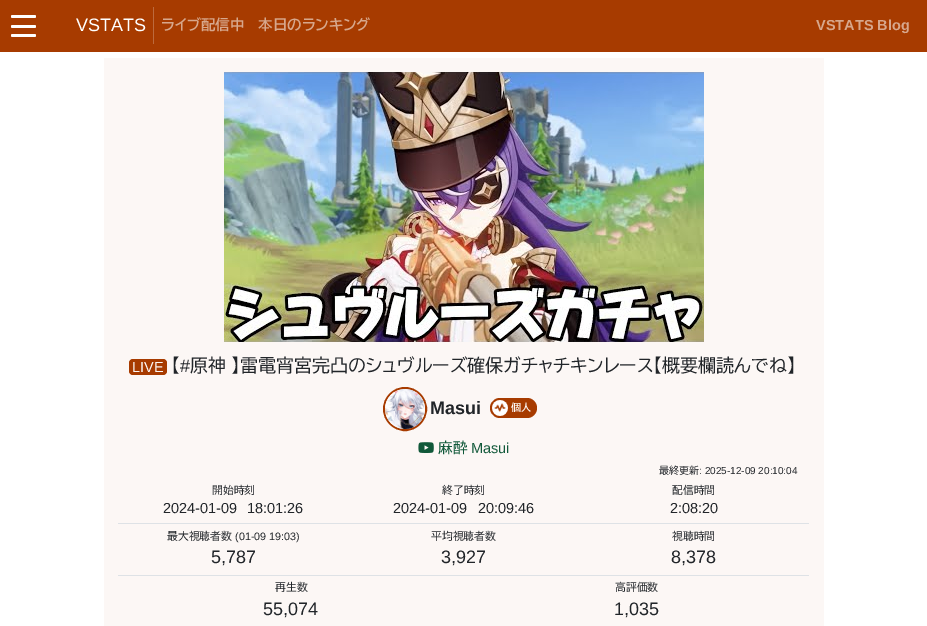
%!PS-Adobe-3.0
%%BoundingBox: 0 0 927 626
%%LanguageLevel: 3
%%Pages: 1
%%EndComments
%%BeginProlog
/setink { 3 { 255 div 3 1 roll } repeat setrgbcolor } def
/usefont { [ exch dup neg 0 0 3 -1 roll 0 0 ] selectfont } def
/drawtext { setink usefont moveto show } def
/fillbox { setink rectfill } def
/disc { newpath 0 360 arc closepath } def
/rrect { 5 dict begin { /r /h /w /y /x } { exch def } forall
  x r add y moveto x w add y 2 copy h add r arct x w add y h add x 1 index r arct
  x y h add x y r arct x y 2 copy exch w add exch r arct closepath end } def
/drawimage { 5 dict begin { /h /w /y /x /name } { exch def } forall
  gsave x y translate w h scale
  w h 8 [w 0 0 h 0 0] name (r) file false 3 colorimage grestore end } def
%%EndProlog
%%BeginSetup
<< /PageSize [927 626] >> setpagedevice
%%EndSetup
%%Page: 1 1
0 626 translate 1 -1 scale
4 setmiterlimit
0 0 927 626 255 255 255 fillbox
0 0 927 52 167 59 0 fillbox
255 255 255 setink
11 15 25 3 1.5 rrect fill
11 25 25 3 1.5 rrect fill
11 34 25 3 1.5 rrect fill
(VSTATS) 76 31 /LiberationSans-Regular 18 255 255 255 drawtext
153 7 1 37 188 106 61 fillbox
(ライブ配信中) 161 30 /BIZUDPGothic-Bold 14.5 215 167 140 drawtext
(本日のランキング) 258 30 /BIZUDPGothic-Bold 14.5 215 167 140 drawtext
(VSTATS Blog) 816 30 /LiberationSans-Bold 14.5 215 167 140 drawtext
104 58 720 568 252 247 245 fillbox
(assets/img1.rgb) 224 72 480 270 drawimage
167 59 0 setink
129 359 38 16 4 rrect fill
(LIVE) 132 372 /LiberationSans-Regular 14.5 252 247 245 drawtext
(【) 171 372 /BIZUDPGothic-Regular 18 33 37 41 drawtext
(#) 180 372 /LiberationSans-Regular 18 33 37 41 drawtext
/BIZUDPGothic-Regular 18 usefont
190 372 moveto -1 0 32 (原神 】雷電宵宮完凸のシュヴルーズ確保ガチャチキンレース【概要欄読んでね】) widthshow
167 59 0 setink
2 setlinewidth
405 409 21 disc stroke
(assets/img2.rgb) 385 389 40 40 drawimage
(Masui) 430 414 /LiberationSans-Bold 18 33 37 41 drawtext
167 59 0 setink
490 398 47 20 10 rrect fill
(assets/img3.rgb) 492 400 16 16 drawimage
(個人) 511 411 /BIZUDPGothic-Bold 10 252 247 245 drawtext
(assets/img4.rgb) 418 442 16 11 drawimage
(麻酔) 438 453 /BIZUDPGothic-Regular 14.5 16 88 57 drawtext
(Masui) 471 453 /LiberationSans-Regular 14.5 16 88 57 drawtext
(最終更新) 659 474 /BIZUDPGothic-Regular 10 33 37 41 drawtext
(: 2025-12-09 20:10:04) 699 474 /LiberationSans-Regular 10 33 37 41 drawtext
118 523 691 1 222 226 230 fillbox
(開始時刻) 212 494 /BIZUDPGothic-Regular 10.75 33 37 41 drawtext
(2024-01-09) 163 513 /LiberationSans-Regular 14.5 33 37 41 drawtext
(18:01:26) 247 513 /LiberationSans-Regular 14.5 33 37 41 drawtext
(終了時刻) 442 494 /BIZUDPGothic-Regular 10.75 33 37 41 drawtext
(2024-01-09) 393 513 /LiberationSans-Regular 14.5 33 37 41 drawtext
(20:09:46) 478 513 /LiberationSans-Regular 14.5 33 37 41 drawtext
(配信時間) 672 494 /BIZUDPGothic-Regular 10.75 33 37 41 drawtext
(2:08:20) 670 513 /LiberationSans-Regular 14.5 33 37 41 drawtext
118 575 691 1 222 226 230 fillbox
(最大視聴者数) 167 540 /BIZUDPGothic-Regular 10.75 33 37 41 drawtext
(\(01-09 19:03\)) 235 540 /LiberationSans-Regular 10.75 33 37 41 drawtext
(5,787) 211 563 /LiberationSans-Regular 18 33 37 41 drawtext
(平均視聴者数) 431 540 /BIZUDPGothic-Regular 10.75 33 37 41 drawtext
(3,927) 441 563 /LiberationSans-Regular 18 33 37 41 drawtext
(視聴時間) 672 540 /BIZUDPGothic-Regular 10.75 33 37 41 drawtext
(8,378) 671 563 /LiberationSans-Regular 18 33 37 41 drawtext
(再生数) 275 591 /BIZUDPGothic-Regular 10.75 33 37 41 drawtext
(55,074) 263 615 /LiberationSans-Regular 18 33 37 41 drawtext
(高評価数) 615 591 /BIZUDPGothic-Regular 10.75 33 37 41 drawtext
(1,035) 614 615 /LiberationSans-Regular 18 33 37 41 drawtext
showpage
%%EOF
